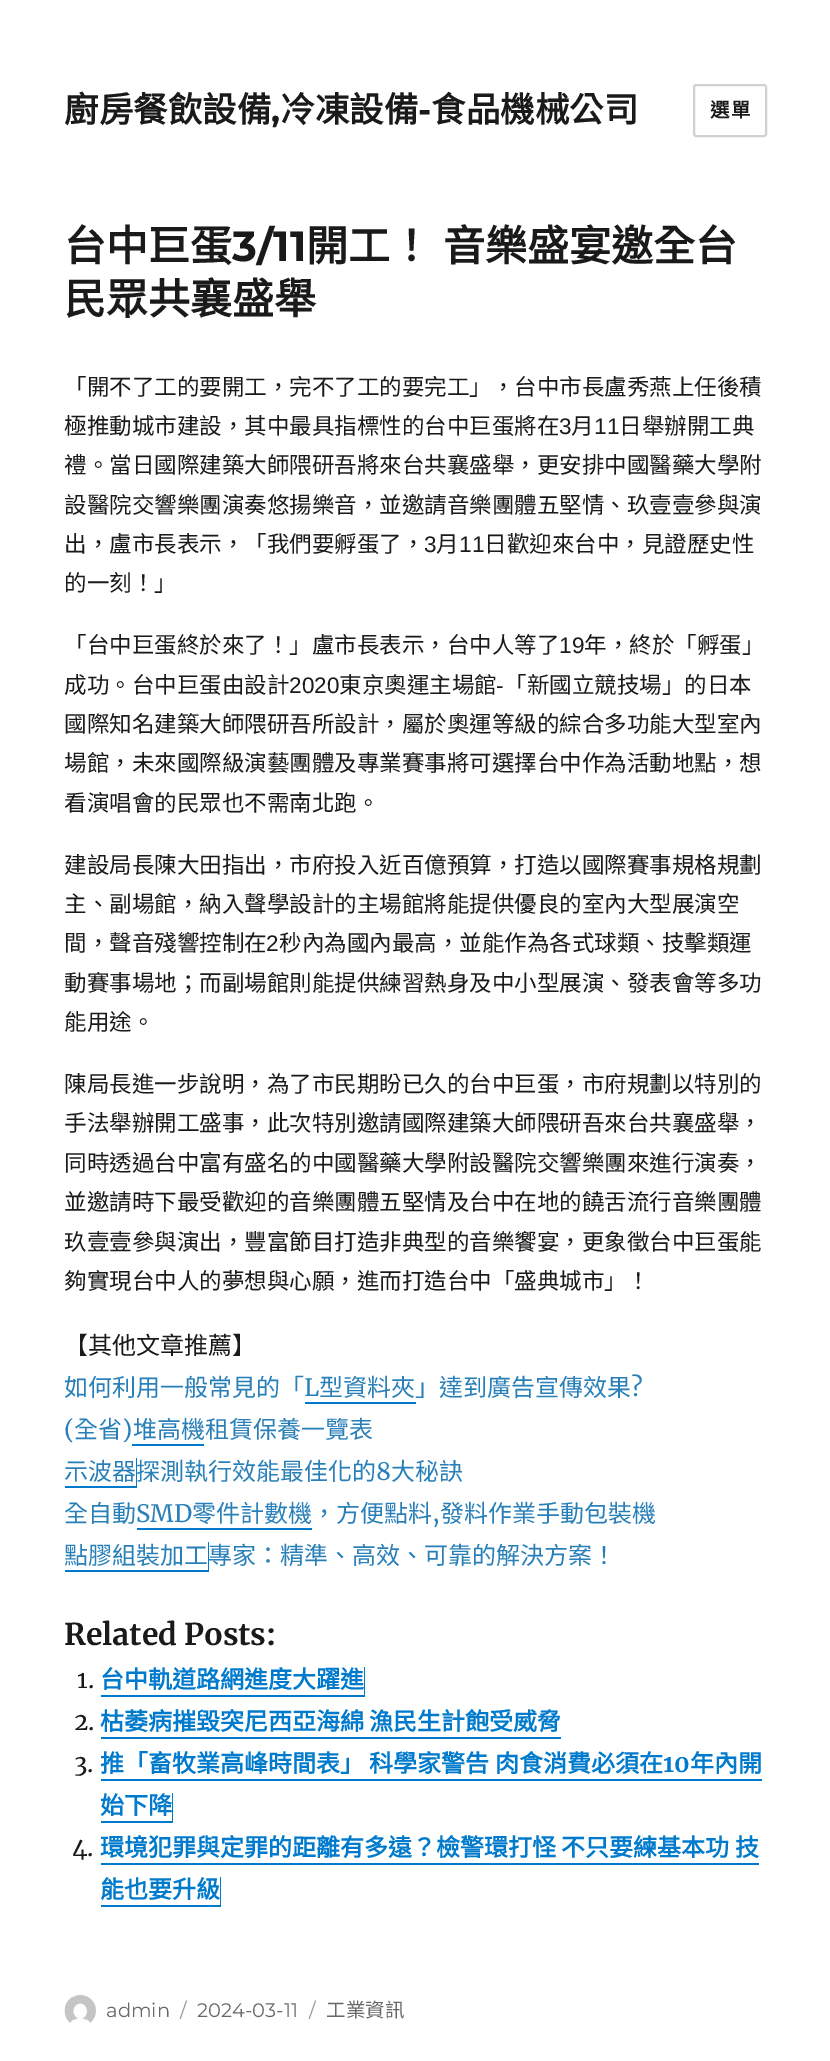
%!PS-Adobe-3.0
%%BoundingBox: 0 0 830 2061
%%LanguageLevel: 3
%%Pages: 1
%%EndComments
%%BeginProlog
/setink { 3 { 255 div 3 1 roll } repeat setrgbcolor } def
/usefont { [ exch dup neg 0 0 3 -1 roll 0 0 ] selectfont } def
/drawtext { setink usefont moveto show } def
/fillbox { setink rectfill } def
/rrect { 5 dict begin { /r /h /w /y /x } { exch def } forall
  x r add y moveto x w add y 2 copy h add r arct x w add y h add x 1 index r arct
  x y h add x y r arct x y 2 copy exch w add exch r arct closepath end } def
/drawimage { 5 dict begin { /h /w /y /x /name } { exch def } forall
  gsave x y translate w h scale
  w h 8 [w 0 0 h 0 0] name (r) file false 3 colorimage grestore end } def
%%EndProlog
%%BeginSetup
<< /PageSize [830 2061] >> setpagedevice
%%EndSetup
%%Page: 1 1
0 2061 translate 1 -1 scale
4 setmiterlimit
0 0 830 2061 255 255 255 fillbox
(廚房餐飲設備) 64 122 /NotoSansCJKTC-Bold 34.5 26 26 26 drawtext
(冷凍設備) 280 122 /NotoSansCJKTC-Bold 34.5 26 26 26 drawtext
(-) 418 122 /Montserrat-Thin 34.5 26 26 26 drawtext
(食品機械公司) 431 122 /NotoSansCJKTC-Bold 34.5 26 26 26 drawtext
(,) 271 122 /Montserrat-Thin 34.5 26 26 26 drawtext
209 209 209 setink
2 setlinewidth
694 85 72 51 2 rrect stroke
/NotoSansCJKTC-Bold 19.5 usefont
26 26 26 setink
710 117 moveto 1 0 (選單) ashow
(台中巨蛋) 64 261 /NotoSansCJKTC-Bold 42 26 26 26 drawtext
(3/11) 232 261 /Montserrat-Thin 42 26 26 26 drawtext
/NotoSansCJKTC-Bold 42 usefont
306 261 moveto 2 0 32 (開工！ 音樂盛宴邀全台) widthshow
(民眾共襄盛舉) 64 314 /NotoSansCJKTC-Bold 42 26 26 26 drawtext
(「開不了工的要開工，完不了工的要完工」，台中市長盧秀燕上任後積) 64 395 /NotoSansCJKTC-Regular 22.5 26 26 26 drawtext
(極推動城市建設，其中最具指標性的台中巨蛋將在) 64 434 /NotoSansCJKTC-Regular 22.5 26 26 26 drawtext
(3) 559 434 /LiberationSans-Regular 22.5 26 26 26 drawtext
(月) 571 434 /NotoSansCJKTC-Regular 22.5 26 26 26 drawtext
(11) 594 434 /LiberationSans-Regular 22.5 26 26 26 drawtext
(日舉辦開工典) 619 434 /NotoSansCJKTC-Regular 22.5 26 26 26 drawtext
(禮。當日國際建築大師隈研吾將來台共襄盛舉，更安排中國醫藥大學附) 64 473 /NotoSansCJKTC-Regular 22.5 26 26 26 drawtext
(設醫院交響樂團演奏悠揚樂音，並邀請音樂團體五堅情、玖壹壹參與演) 64 513 /NotoSansCJKTC-Regular 22.5 26 26 26 drawtext
(出，盧市長表示，「我們要孵蛋了，) 64 552 /NotoSansCJKTC-Regular 22.5 26 26 26 drawtext
(3) 424 552 /LiberationSans-Regular 22.5 26 26 26 drawtext
(月) 436 552 /NotoSansCJKTC-Regular 22.5 26 26 26 drawtext
(11) 459 552 /LiberationSans-Regular 22.5 26 26 26 drawtext
(日歡迎來台中，見證歷史性) 484 552 /NotoSansCJKTC-Regular 22.5 26 26 26 drawtext
(的一刻！」) 64 591 /NotoSansCJKTC-Regular 22.5 26 26 26 drawtext
(「台中巨蛋終於來了！」盧市長表示，台中人等了) 64 653 /NotoSansCJKTC-Regular 22.5 26 26 26 drawtext
(19) 559 653 /LiberationSans-Regular 22.5 26 26 26 drawtext
(年，終於「孵蛋」) 584 653 /NotoSansCJKTC-Regular 22.5 26 26 26 drawtext
(成功。台中巨蛋由設計) 64 693 /NotoSansCJKTC-Regular 22.5 26 26 26 drawtext
(2020) 289 693 /LiberationSans-Regular 22.5 26 26 26 drawtext
(東京奧運主場館) 339 693 /NotoSansCJKTC-Regular 22.5 26 26 26 drawtext
(-) 496 693 /LiberationSans-Regular 22.5 26 26 26 drawtext
(「新國立競技場」的日本) 504 693 /NotoSansCJKTC-Regular 22.5 26 26 26 drawtext
(國際知名建築大師隈研吾所設計，屬於奧運等級的綜合多功能大型室內) 64 732 /NotoSansCJKTC-Regular 22.5 26 26 26 drawtext
(場館，未來國際級演藝團體及專業賽事將可選擇台中作為活動地點，想) 64 771 /NotoSansCJKTC-Regular 22.5 26 26 26 drawtext
(看演唱會的民眾也不需南北跑。) 64 811 /NotoSansCJKTC-Regular 22.5 26 26 26 drawtext
(建設局長陳大田指出，市府投入近百億預算，打造以國際賽事規格規劃) 64 873 /NotoSansCJKTC-Regular 22.5 26 26 26 drawtext
(主、副場館，納入聲學設計的主場館將能提供優良的室內大型展演空) 64 912 /NotoSansCJKTC-Regular 22.5 26 26 26 drawtext
(間，聲音殘響控制在) 64 951 /NotoSansCJKTC-Regular 22.5 26 26 26 drawtext
(2) 266 951 /LiberationSans-Regular 22.5 26 26 26 drawtext
(秒內為國內最高，並能作為各式球類、技擊類運) 279 951 /NotoSansCJKTC-Regular 22.5 26 26 26 drawtext
(動賽事場地；而副場館則能提供練習熱身及中小型展演、發表會等多功) 64 991 /NotoSansCJKTC-Regular 22.5 26 26 26 drawtext
(能用途。) 64 1030 /NotoSansCJKTC-Regular 22.5 26 26 26 drawtext
(陳局長進一步說明，為了市民期盼已久的台中巨蛋，市府規劃以特別的) 64 1092 /NotoSansCJKTC-Regular 22.5 26 26 26 drawtext
(手法舉辦開工盛事，此次特別邀請國際建築大師隈研吾來台共襄盛舉，) 64 1131 /NotoSansCJKTC-Regular 22.5 26 26 26 drawtext
(同時透過台中富有盛名的中國醫藥大學附設醫院交響樂團來進行演奏，) 64 1171 /NotoSansCJKTC-Regular 22.5 26 26 26 drawtext
(並邀請時下最受歡迎的音樂團體五堅情及台中在地的饒舌流行音樂團體) 64 1210 /NotoSansCJKTC-Regular 22.5 26 26 26 drawtext
(玖壹壹參與演出，豐富節目打造非典型的音樂饗宴，更象徵台中巨蛋能) 64 1250 /NotoSansCJKTC-Regular 22.5 26 26 26 drawtext
(夠實現台中人的夢想與心願，進而打造台中「盛典城市」！) 64 1289 /NotoSansCJKTC-Regular 22.5 26 26 26 drawtext
(【其他文章推薦】) 64 1354 /NotoSansCJKTC-Regular 24 26 26 26 drawtext
(如何利用一般常見的「) 64 1396 /NotoSansCJKTC-Regular 24 41 128 185 drawtext
(L) 304 1396 /Merriweather-Regular 24 41 128 185 drawtext
0 122 204 setink
305 1402 moveto 305 1404 lineto 416 1404 lineto 416 1374 lineto 416 1402 lineto closepath fill
(型資料夾」達到廣告宣傳效果) 319 1396 /NotoSansCJKTC-Regular 24 41 128 185 drawtext
(?) 631 1396 /Merriweather-Regular 24 41 128 185 drawtext
(\() 64 1438 /Merriweather-Regular 24 41 128 185 drawtext
(全省) 74 1438 /NotoSansCJKTC-Regular 24 41 128 185 drawtext
(\)) 122 1438 /Merriweather-Regular 24 41 128 185 drawtext
132 1444 72 2 0 122 204 fillbox
(堆高機租賃保養一覽表) 133 1438 /NotoSansCJKTC-Regular 24 41 128 185 drawtext
0 122 204 setink
65 1486 moveto 65 1488 lineto 137 1488 lineto 137 1458 lineto 136 1458 lineto 136 1486 lineto closepath fill
(示波器探測執行效能最佳化的) 64 1480 /NotoSansCJKTC-Regular 24 41 128 185 drawtext
(8) 376 1480 /Merriweather-Regular 24 41 128 185 drawtext
(大秘訣) 391 1480 /NotoSansCJKTC-Regular 24 41 128 185 drawtext
(全自動) 64 1522 /NotoSansCJKTC-Regular 24 41 128 185 drawtext
(SMD) 136 1522 /Merriweather-Regular 24 41 128 185 drawtext
137 1528 175 2 0 122 204 fillbox
(零件計數機，方便點料) 192 1522 /NotoSansCJKTC-Regular 24 41 128 185 drawtext
(,) 432 1522 /Merriweather-Regular 24 41 128 185 drawtext
(發料作業手動包裝機) 440 1522 /NotoSansCJKTC-Regular 24 41 128 185 drawtext
0 122 204 setink
65 1570 moveto 65 1572 lineto 209 1572 lineto 209 1542 lineto 208 1542 lineto 208 1570 lineto closepath fill
(點膠組裝加工專家：精準、高效、可靠的解決方案！) 64 1564 /NotoSansCJKTC-Regular 24 41 128 185 drawtext
(Related Posts:) 64 1645 /Merriweather-Bold 30 26 26 26 drawtext
(1.) 77 1688 /Merriweather-Regular 24 26 26 26 drawtext
0 122 204 setink
101 1695 moveto 101 1697 lineto 365 1697 lineto 365 1667 lineto 364 1667 lineto 364 1695 lineto closepath fill
(台中軌道路網進度大躍進) 100 1688 /NotoSansCJKTC-Bold 24 0 122 204 drawtext
(2.) 74 1730 /Merriweather-Regular 24 26 26 26 drawtext
(枯萎病摧毀突尼西亞海綿 漁民生計飽受威脅) 100 1730 /NotoSansCJKTC-Bold 24 0 122 204 drawtext
101 1737 460 2 0 122 204 fillbox
(3.) 74 1772 /Merriweather-Regular 24 26 26 26 drawtext
(推「畜牧業高峰時間表」 科學家警告 肉食消費必須在) 100 1772 /NotoSansCJKTC-Bold 24 0 122 204 drawtext
(10) 663 1772 /Merriweather-Bold 24 0 122 204 drawtext
101 1779 661 2 0 122 204 fillbox
(年內開) 690 1772 /NotoSansCJKTC-Bold 24 0 122 204 drawtext
101 1821 moveto 101 1823 lineto 173 1823 lineto 173 1793 lineto 172 1793 lineto 172 1821 lineto closepath fill
(始下降) 100 1814 /NotoSansCJKTC-Bold 24 0 122 204 drawtext
(4.) 72 1856 /Merriweather-Regular 24 26 26 26 drawtext
(環境犯罪與定罪的距離有多遠？檢警環打怪 不只要練基本功 技) 100 1856 /NotoSansCJKTC-Bold 24 0 122 204 drawtext
101 1863 658 2 0 122 204 fillbox
101 1905 moveto 101 1907 lineto 221 1907 lineto 221 1877 lineto 220 1877 lineto 220 1905 lineto closepath fill
(能也要升級) 100 1898 /NotoSansCJKTC-Bold 24 0 122 204 drawtext
(assets/img1.rgb) 64 1995 32 28 drawimage
(admin) 106 2017 /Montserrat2-Thin 19.5 104 104 104 drawtext
(/) 180 2017 /Montserrat2-Thin 19.5 149 149 149 drawtext
(2024-03-11) 197 2017 /Montserrat2-Thin 19.5 104 104 104 drawtext
(/) 309 2017 /Montserrat2-Thin 19.5 149 149 149 drawtext
(工業資訊) 326 2017 /NotoSansCJKTC-Regular 19.5 104 104 104 drawtext
showpage
%%EOF
